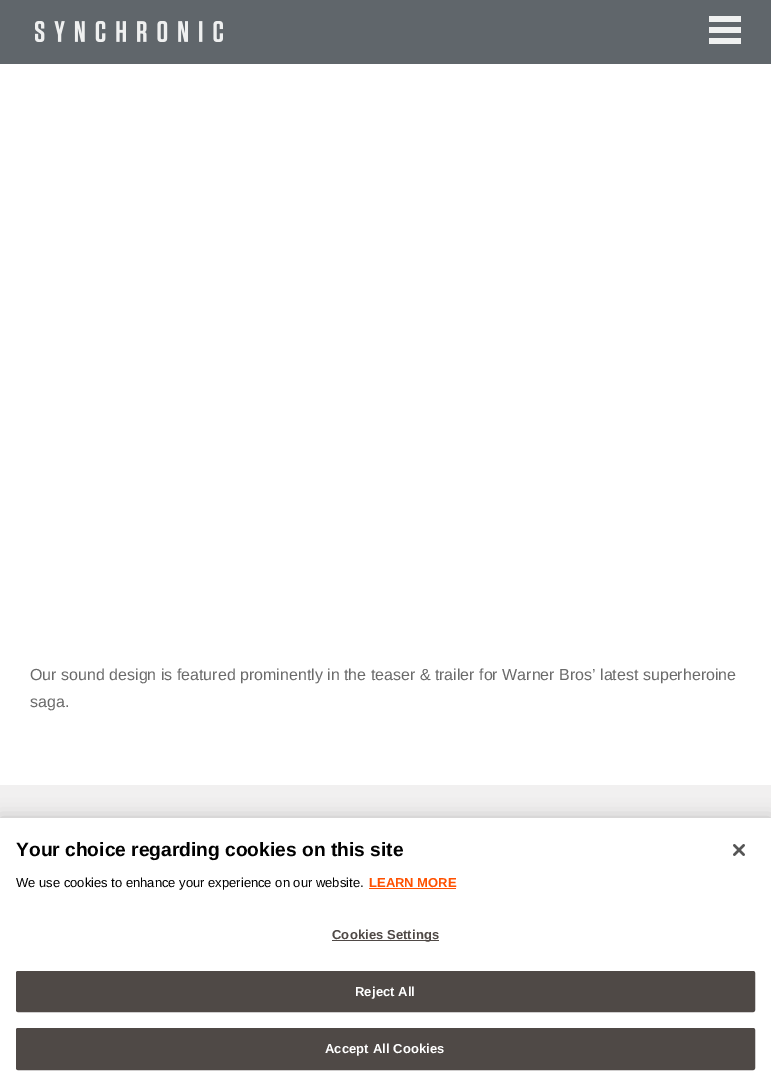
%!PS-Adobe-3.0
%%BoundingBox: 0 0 771 1086
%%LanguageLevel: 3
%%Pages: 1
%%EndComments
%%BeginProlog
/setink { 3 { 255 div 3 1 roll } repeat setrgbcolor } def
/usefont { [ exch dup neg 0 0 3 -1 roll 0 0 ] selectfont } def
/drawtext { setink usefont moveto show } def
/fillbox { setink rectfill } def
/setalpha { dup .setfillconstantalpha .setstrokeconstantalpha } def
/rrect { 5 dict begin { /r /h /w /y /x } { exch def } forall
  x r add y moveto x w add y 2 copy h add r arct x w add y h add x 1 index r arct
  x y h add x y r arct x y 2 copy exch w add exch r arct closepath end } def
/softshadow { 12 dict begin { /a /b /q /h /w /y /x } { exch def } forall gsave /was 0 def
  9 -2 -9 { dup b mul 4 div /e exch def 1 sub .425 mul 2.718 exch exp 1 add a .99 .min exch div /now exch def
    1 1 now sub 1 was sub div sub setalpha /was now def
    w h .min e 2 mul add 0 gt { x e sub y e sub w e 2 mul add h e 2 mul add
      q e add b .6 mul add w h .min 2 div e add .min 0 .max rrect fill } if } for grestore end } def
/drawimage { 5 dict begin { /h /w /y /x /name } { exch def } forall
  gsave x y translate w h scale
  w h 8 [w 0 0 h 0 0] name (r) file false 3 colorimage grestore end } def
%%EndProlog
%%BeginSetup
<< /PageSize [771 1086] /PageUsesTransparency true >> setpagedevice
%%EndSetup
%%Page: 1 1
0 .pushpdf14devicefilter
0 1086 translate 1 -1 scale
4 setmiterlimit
0 0 771 1086 241 240 240 fillbox
0 0 771 64 96 102 107 fillbox
(assets/img1.rgb) 35 21 188 21 drawimage
(assets/img2.rgb) 709 16 32 28 drawimage
0 64 771 721 255 255 255 fillbox
(Our sound design is featured prominently in the teaser & trailer for Warner Bros’ latest superheroine) 30 680 /LiberationSans-Regular 16 106 106 106 drawtext
(saga.) 30 707 /LiberationSans-Regular 16 106 106 106 drawtext
0 0 0 setink
0 818 771 268 0 9 0.2 softshadow
0 818 771 268 255 255 255 fillbox
(Your choice regarding cookies on this site) 16 856 /LiberationSans-Bold 19.2 0 0 0 drawtext
(We use cookies to enhance your experience on our website.) 16 887 /LiberationSans-Regular 13 0 0 0 drawtext
(LEARN MORE) 369 887 /LiberationSans-Bold 13 255 81 0 drawtext
369 888 87 1 255 81 0 fillbox
332 940 107 1 79 73 70 fillbox
332 939 moveto 0.1 0 (Cookies Settings) ashow
16.5 971.5 738 40 1.5 rrect gsave fill grestore
stroke
255 255 255 setink
355 996 moveto 0.1 0 (Reject All) ashow
79 73 70 setink
16.5 1028.5 738 41 1.5 rrect gsave fill grestore
stroke
255 255 255 setink
325 1053 moveto 0.1 0 (Accept All Cookies) ashow
(assets/img3.rgb) 733 844 12 12 drawimage
.poppdf14devicefilter showpage
%%EOF
